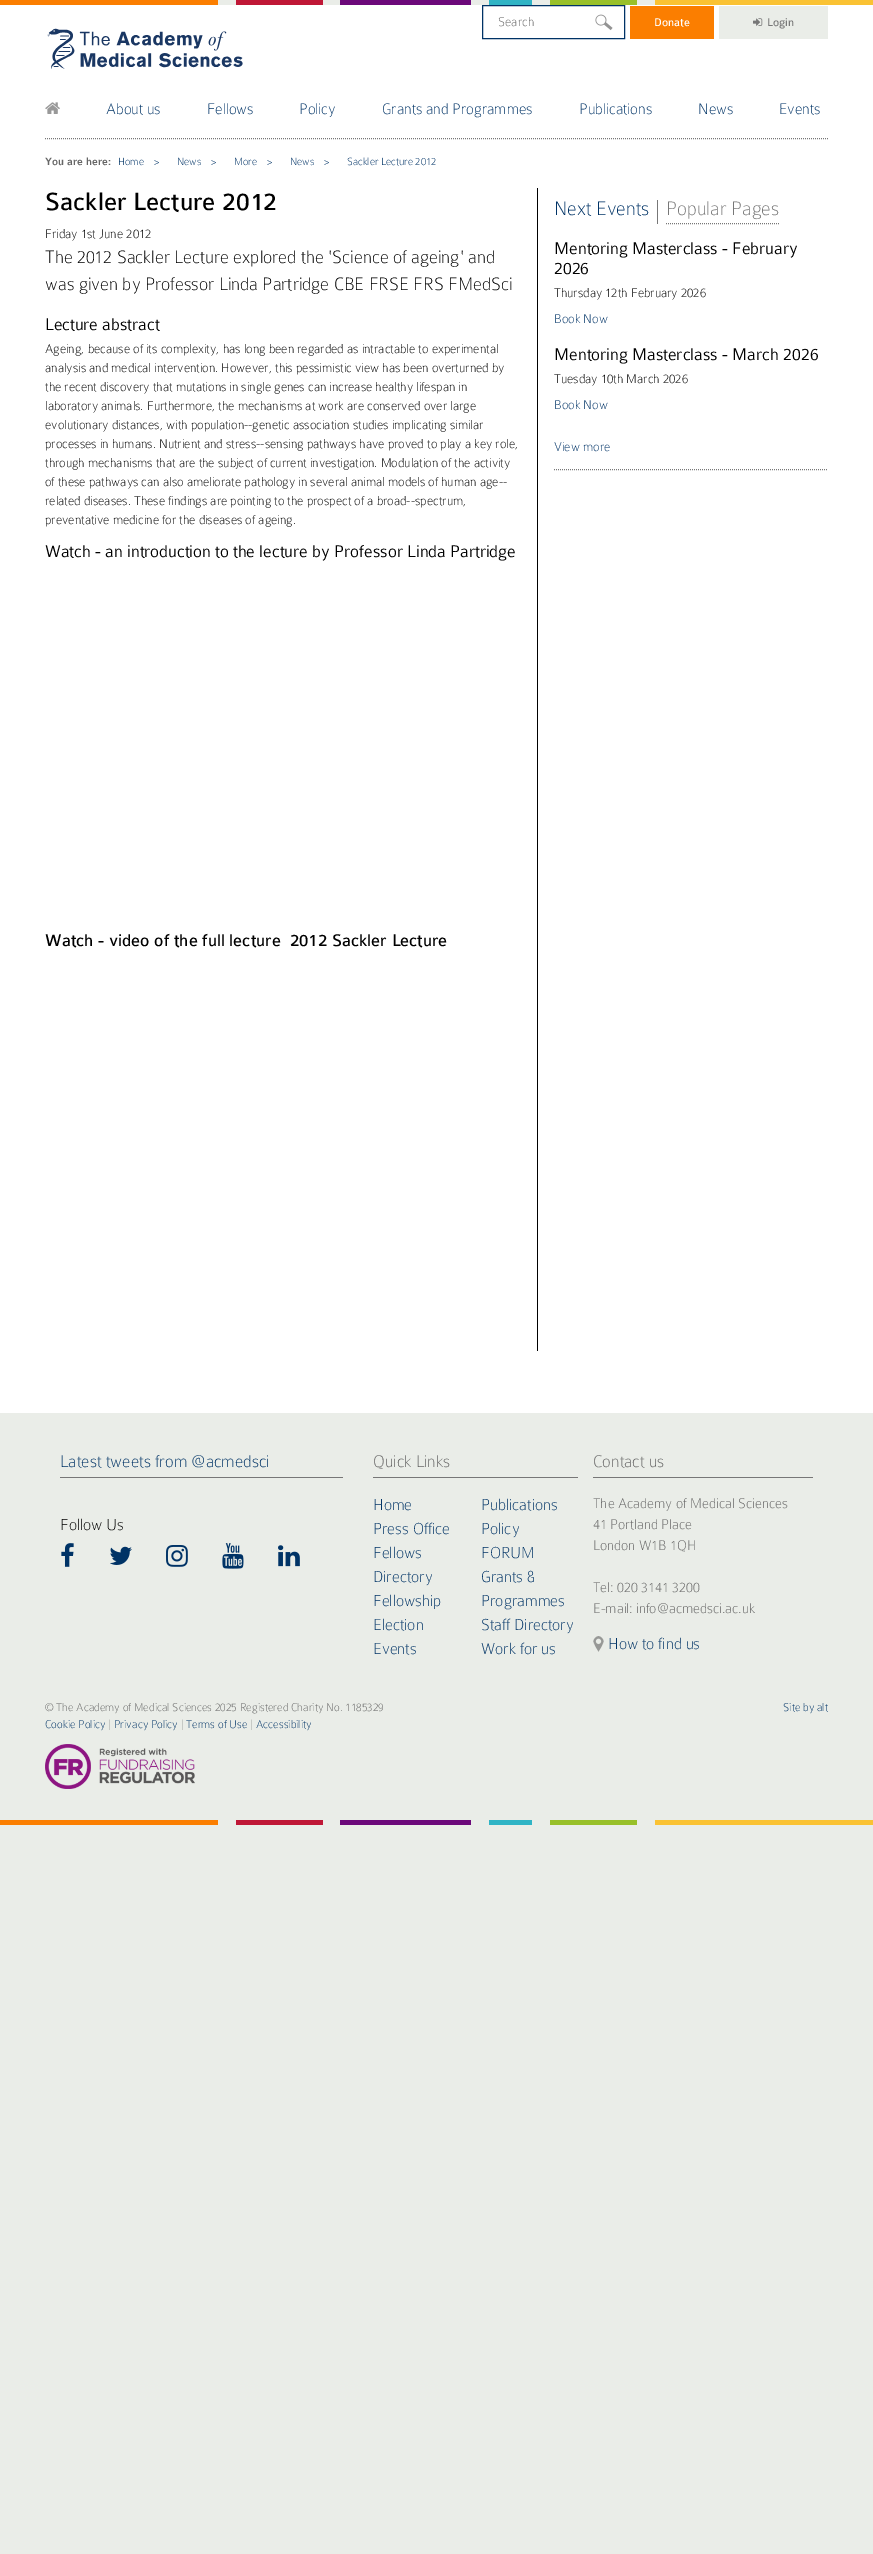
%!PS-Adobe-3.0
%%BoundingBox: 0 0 873 2554
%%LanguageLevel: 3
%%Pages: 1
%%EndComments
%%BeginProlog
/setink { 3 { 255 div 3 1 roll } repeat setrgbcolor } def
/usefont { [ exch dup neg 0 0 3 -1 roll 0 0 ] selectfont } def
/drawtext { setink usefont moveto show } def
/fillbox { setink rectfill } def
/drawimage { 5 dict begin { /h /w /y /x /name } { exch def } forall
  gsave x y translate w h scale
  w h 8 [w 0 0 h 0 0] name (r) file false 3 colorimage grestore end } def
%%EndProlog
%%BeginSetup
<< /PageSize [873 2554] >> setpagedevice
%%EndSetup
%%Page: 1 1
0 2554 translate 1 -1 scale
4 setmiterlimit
0 0 873 2554 234 237 232 fillbox
0 0 218 5 251 126 0 fillbox
236 0 87 5 191 23 54 fillbox
340 0 131 5 108 9 122 fillbox
489 0 43 5 48 180 197 fillbox
550 0 87 5 152 192 41 fillbox
655 0 218 5 250 194 51 fillbox
0 5 873 1408 255 255 255 fillbox
(assets/img1.rgb) 595 14 18 17 drawimage
0 51 102 setink
482.5 5.5 142 33 rectstroke
(Search) 498 26 /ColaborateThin-Thin 13.6 102 102 102 drawtext
630 6 84 33 251 126 0 fillbox
(Donate) 654 26 /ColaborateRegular-Regular 12 255 255 255 drawtext
719 6 109 33 234 237 232 fillbox
(assets/img2.rgb) 753 18 10 8 drawimage
(Login) 767 26 /ColaborateRegular-Regular 12 119 119 119 drawtext
(assets/img3.rgb) 47 28 196 41 drawimage
(assets/img4.rgb) 45 102 15 12 drawimage
(About us) 106 114 /ColaborateThin-Thin 16.25 0 51 102 drawtext
(Fellows) 207 114 /ColaborateThin-Thin 16.25 0 51 102 drawtext
(Policy) 299 114 /ColaborateThin-Thin 16.25 0 51 102 drawtext
(Grants and Programmes) 382 114 /ColaborateThin-Thin 16.25 0 51 102 drawtext
(Publications) 579 114 /ColaborateThin-Thin 16.25 0 51 102 drawtext
(News) 698 114 /ColaborateThin-Thin 16.25 0 51 102 drawtext
(Events) 779 114 /ColaborateThin-Thin 16.25 0 51 102 drawtext
119 119 119 setink
[1 1] 0 setdash
45 138.5 moveto 828 138.5 lineto stroke
(You are here:) 45 165 /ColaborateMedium-Medium 11.25 102 102 102 drawtext
(Home) 118 165 /ColaborateThin-Thin 11.25 0 51 102 drawtext
(>) 154 165 /ColaborateThin-Thin 11.25 0 51 102 drawtext
(News) 177 165 /ColaborateThin-Thin 11.25 0 51 102 drawtext
(>) 211 165 /ColaborateThin-Thin 11.25 0 51 102 drawtext
(More) 234 165 /ColaborateThin-Thin 11.25 0 51 102 drawtext
(>) 267 165 /ColaborateThin-Thin 11.25 0 51 102 drawtext
(News) 290 165 /ColaborateThin-Thin 11.25 0 51 102 drawtext
(>) 324 165 /ColaborateThin-Thin 11.25 0 51 102 drawtext
(Sackler Lecture 2012) 347 165 /ColaborateThin-Thin 11.25 0 51 102 drawtext
537 188 1 1163 0 0 0 fillbox
(Sackler Lecture 2012) 45 210 /ColaborateRegular-Regular 26.5 0 0 0 drawtext
(Friday 1st June 2012) 45 238 /ColaborateThin-Thin 13.6 0 0 0 drawtext
(The 2012 Sackler Lecture explored the 'Science of ageing' and) 45 263 /ColaborateThin-Thin 19.2 0 0 0 drawtext
(was given by Professor Linda Partridge CBE FRSE FRS FMedSci) 45 290 /ColaborateThin-Thin 19.2 0 0 0 drawtext
(Lecture abstract) 45 330 /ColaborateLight-Light 18 0 0 0 drawtext
(Ageing, because of its complexity, has long been regarded as intractable to experimental) 45 353 /ColaborateThin-Thin 13.6 0 0 0 drawtext
(analysis and medical intervention. However, this pessimistic view has been overturned by) 45 372 /ColaborateThin-Thin 13.6 0 0 0 drawtext
(the recent discovery that mutations in single genes can increase healthy lifespan in) 45 391 /ColaborateThin-Thin 13.6 0 0 0 drawtext
(laboratory animals. Furthermore, the mechanisms at work are conserved over large) 45 410 /ColaborateThin-Thin 13.6 0 0 0 drawtext
(evolutionary distances, with population--genetic association studies implicating similar) 45 429 /ColaborateThin-Thin 13.6 0 0 0 drawtext
(processes in humans. Nutrient and stress--sensing pathways have proved to play a key role,) 45 448 /ColaborateThin-Thin 13.6 0 0 0 drawtext
(through mechanisms that are the subject of current investigation. Modulation of the activity) 45 467 /ColaborateThin-Thin 13.6 0 0 0 drawtext
(of these pathways can also ameliorate pathology in several animal models of human age--) 45 486 /ColaborateThin-Thin 13.6 0 0 0 drawtext
(related diseases. These findings are pointing to the prospect of a broad--spectrum,) 45 505 /ColaborateThin-Thin 13.6 0 0 0 drawtext
(preventative medicine for the diseases of ageing.) 45 524 /ColaborateThin-Thin 13.6 0 0 0 drawtext
(Watch - an introduction to the lecture by Professor Linda Partridge) 45 557 /ColaborateLight-Light 18 0 0 0 drawtext
(Watch - video of the full lecture  2012 Sackler Lecture) 45 946 /ColaborateRegular-Regular 18 0 0 0 drawtext
119 119 119 setink
554 469.5 moveto 828 469.5 lineto stroke
(Next Events) 554 215 /ColaborateThin-Thin 20.75 0 51 102 drawtext
657 200 1 24 119 119 119 fillbox
666 223.5 moveto 779 223.5 lineto stroke
(Popular Pages) 666 215 /ColaborateThin-Thin 20.75 119 119 119 drawtext
(Mentoring Masterclass - February) 554 254 /ColaborateLight-Light 18 0 0 0 drawtext
(2026) 554 274 /ColaborateLight-Light 18 0 0 0 drawtext
(Thursday 12th February 2026) 554 297 /ColaborateThin-Thin 13.6 0 0 0 drawtext
(Book Now) 554 323 /ColaborateThin-Thin 13.6 0 51 102 drawtext
(Mentoring Masterclass - March 2026) 554 360 /ColaborateLight-Light 18 0 0 0 drawtext
(Tuesday 10th March 2026) 554 383 /ColaborateThin-Thin 13.6 0 0 0 drawtext
(Book Now) 554 409 /ColaborateThin-Thin 13.6 0 51 102 drawtext
(View more) 554 451 /ColaborateThin-Thin 13.6 0 51 102 drawtext
60 1477 283 1 119 119 119 fillbox
(Latest tweets from @acmedsci) 60 1467 /ColaborateThin-Thin 18 0 51 102 drawtext
(Follow Us) 60 1530 /ColaborateThin-Thin 17 0 0 0 drawtext
(assets/img5.rgb) 61 1543 13 24 drawimage
(assets/img6.rgb) 110 1546 22 19 drawimage
(assets/img7.rgb) 166 1545 22 22 drawimage
(assets/img8.rgb) 222 1543 22 26 drawimage
(assets/img9.rgb) 278 1545 22 22 drawimage
373 1477 205 1 119 119 119 fillbox
(Quick Links) 373 1467 /ColaborateThin-Thin 18 102 102 102 drawtext
(Home) 373 1510 /ColaborateThin-Thin 17 0 51 102 drawtext
(Press Office) 373 1534 /ColaborateThin-Thin 17 0 51 102 drawtext
(Fellows) 373 1558 /ColaborateThin-Thin 17 0 51 102 drawtext
(Directory) 373 1582 /ColaborateThin-Thin 17 0 51 102 drawtext
(Fellowship) 373 1606 /ColaborateThin-Thin 17 0 51 102 drawtext
(Election) 373 1630 /ColaborateThin-Thin 17 0 51 102 drawtext
(Events) 373 1654 /ColaborateThin-Thin 17 0 51 102 drawtext
(Publications) 481 1510 /ColaborateThin-Thin 17 0 51 102 drawtext
(Policy) 481 1534 /ColaborateThin-Thin 17 0 51 102 drawtext
(FORUM) 481 1558 /ColaborateThin-Thin 17 0 51 102 drawtext
(Grants &) 481 1582 /ColaborateThin-Thin 17 0 51 102 drawtext
(Programmes) 481 1606 /ColaborateThin-Thin 17 0 51 102 drawtext
(Staff Directory) 481 1630 /ColaborateThin-Thin 17 0 51 102 drawtext
(Work for us) 481 1654 /ColaborateThin-Thin 17 0 51 102 drawtext
593 1477 220 1 119 119 119 fillbox
(Contact us) 593 1467 /ColaborateThin-Thin 18 102 102 102 drawtext
(The Academy of Medical Sciences) 593 1508 /ColaborateThin-Thin 15 102 102 102 drawtext
(41 Portland Place) 593 1529 /ColaborateThin-Thin 15 102 102 102 drawtext
(London W1B 1QH) 593 1550 /ColaborateThin-Thin 15 102 102 102 drawtext
(Tel: 020 3141 3200) 593 1592 /ColaborateThin-Thin 15 102 102 102 drawtext
(E-mail: info@acmedsci.ac.uk) 593 1613 /ColaborateThin-Thin 15 102 102 102 drawtext
(assets/img10.rgb) 593 1636 11 16 drawimage
(How to find us) 608 1649 /ColaborateThin-Thin 17 0 51 102 drawtext
(© The Academy of Medical Sciences 2025 Registered Charity No. 1185329) 45 1711 /ColaborateThin-Thin 12 102 102 102 drawtext
(Cookie Policy) 45 1728 /ColaborateThin-Thin 12 0 51 102 drawtext
(|) 108 1728 /ColaborateThin-Thin 12 102 102 102 drawtext
(Privacy Policy) 114 1728 /ColaborateThin-Thin 12 0 51 102 drawtext
(|) 181 1728 /ColaborateThin-Thin 12 102 102 102 drawtext
(Terms of Use) 186 1728 /ColaborateThin-Thin 12 0 51 102 drawtext
(|) 250 1728 /ColaborateThin-Thin 12 102 102 102 drawtext
(Accessibility) 256 1728 /ColaborateThin-Thin 12 0 51 102 drawtext
(assets/img11.rgb) 45 1744 150 45 drawimage
(Site by alt) 783 1711 /ColaborateThin-Thin 12 0 51 102 drawtext
0 1820 218 5 251 126 0 fillbox
236 1820 87 5 191 23 54 fillbox
340 1820 131 5 108 9 122 fillbox
489 1820 43 5 48 180 197 fillbox
550 1820 87 5 152 192 41 fillbox
655 1820 218 5 250 194 51 fillbox
showpage
%%EOF
